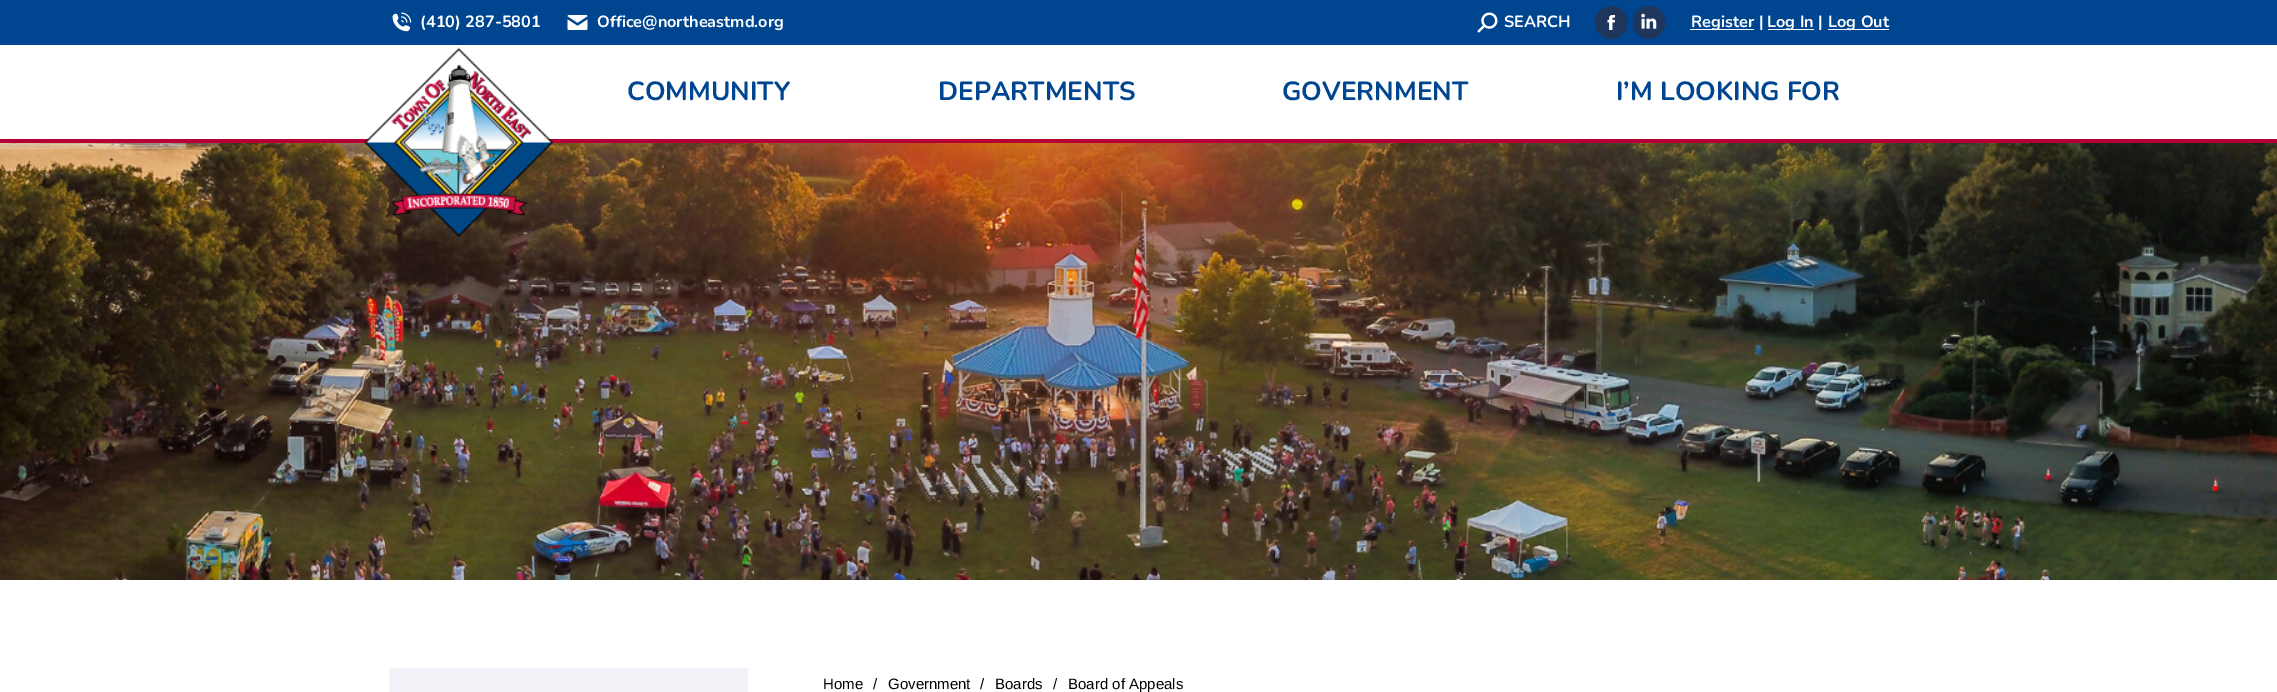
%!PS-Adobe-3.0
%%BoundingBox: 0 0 2277 692
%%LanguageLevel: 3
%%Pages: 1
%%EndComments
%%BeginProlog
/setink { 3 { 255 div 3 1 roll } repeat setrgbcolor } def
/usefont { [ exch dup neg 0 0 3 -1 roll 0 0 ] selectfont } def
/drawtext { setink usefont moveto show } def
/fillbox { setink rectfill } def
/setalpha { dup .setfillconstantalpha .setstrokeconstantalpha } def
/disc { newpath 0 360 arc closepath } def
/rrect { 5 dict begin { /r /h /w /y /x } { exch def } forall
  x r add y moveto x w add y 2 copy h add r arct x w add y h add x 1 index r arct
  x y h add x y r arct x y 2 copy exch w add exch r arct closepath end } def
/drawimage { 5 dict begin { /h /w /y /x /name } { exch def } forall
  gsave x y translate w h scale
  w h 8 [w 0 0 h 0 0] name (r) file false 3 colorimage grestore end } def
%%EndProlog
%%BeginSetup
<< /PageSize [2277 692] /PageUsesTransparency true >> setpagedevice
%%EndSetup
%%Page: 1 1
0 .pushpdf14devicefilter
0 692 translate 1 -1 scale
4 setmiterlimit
0 0 2277 692 255 255 255 fillbox
0 139 2277 4 181 0 55 fillbox
0 0 2277 45 0 69 144 fillbox
(assets/img1.rgb) 392 12 20 20 drawimage
(\(410\) 287-5801) 420 27 /Nunito-Bold 16.25 255 255 255 drawtext
(assets/img2.rgb) 567 15 21 15 drawimage
(Office@northeastmd.org) 597 27 /Nunito-Bold 16.25 255 255 255 drawtext
(assets/img3.rgb) 1477 12 21 21 drawimage
(SEARCH) 1504 27 /Nunito-Bold 16.25 255 255 255 drawtext
31 54 92 setink
1611.5 22.5 16.5 disc fill
(assets/img4.rgb) 1607 15 8 15 drawimage
1633 6 32 33 16 rrect fill
(assets/img5.rgb) 1641 13 16 16 drawimage
1690 29 64 1 255 255 255 fillbox
(Register |) 1691 27 /Nunito-Bold 16.25 255 255 255 drawtext
1768 29 46 1 255 255 255 fillbox
(Log In |) 1767 27 /Nunito-Bold 16.25 255 255 255 drawtext
1828 29 61 1 255 255 255 fillbox
(Log Out) 1828 27 /Nunito-Bold 16.25 255 255 255 drawtext
(assets/img7.rgb) 0 143 2277 437 drawimage
(assets/img6.rgb) 364 47 190 190 drawimage
(COMMUNITY) 627 100 /Nunito-Bold 26.25 0 69 144 drawtext
(DEPARTMENTS) 938 100 /Nunito-Bold 26.25 0 69 144 drawtext
(GOVERNMENT) 1282 100 /Nunito-Bold 26.25 0 69 144 drawtext
(I’M LOOKING FOR) 1616 100 /Nunito-Bold 26.25 0 69 144 drawtext
0.3 setalpha
0 143 186 6 255 255 255 fillbox
1 setalpha
389 668 359 24 242 242 249 fillbox
(Home) 823 689 /LiberationSans-Regular 15 0 0 0 drawtext
(/) 873 689 /LiberationSans-Regular 15 0 0 0 drawtext
(Government) 888 689 /LiberationSans-Regular 15 0 0 0 drawtext
(/) 980 689 /LiberationSans-Regular 15 0 0 0 drawtext
(Boards) 995 689 /LiberationSans-Regular 15 0 0 0 drawtext
(/) 1053 689 /LiberationSans-Regular 15 0 0 0 drawtext
(Board of Appeals) 1068 689 /LiberationSans-Regular 15 0 0 0 drawtext
.poppdf14devicefilter showpage
%%EOF
